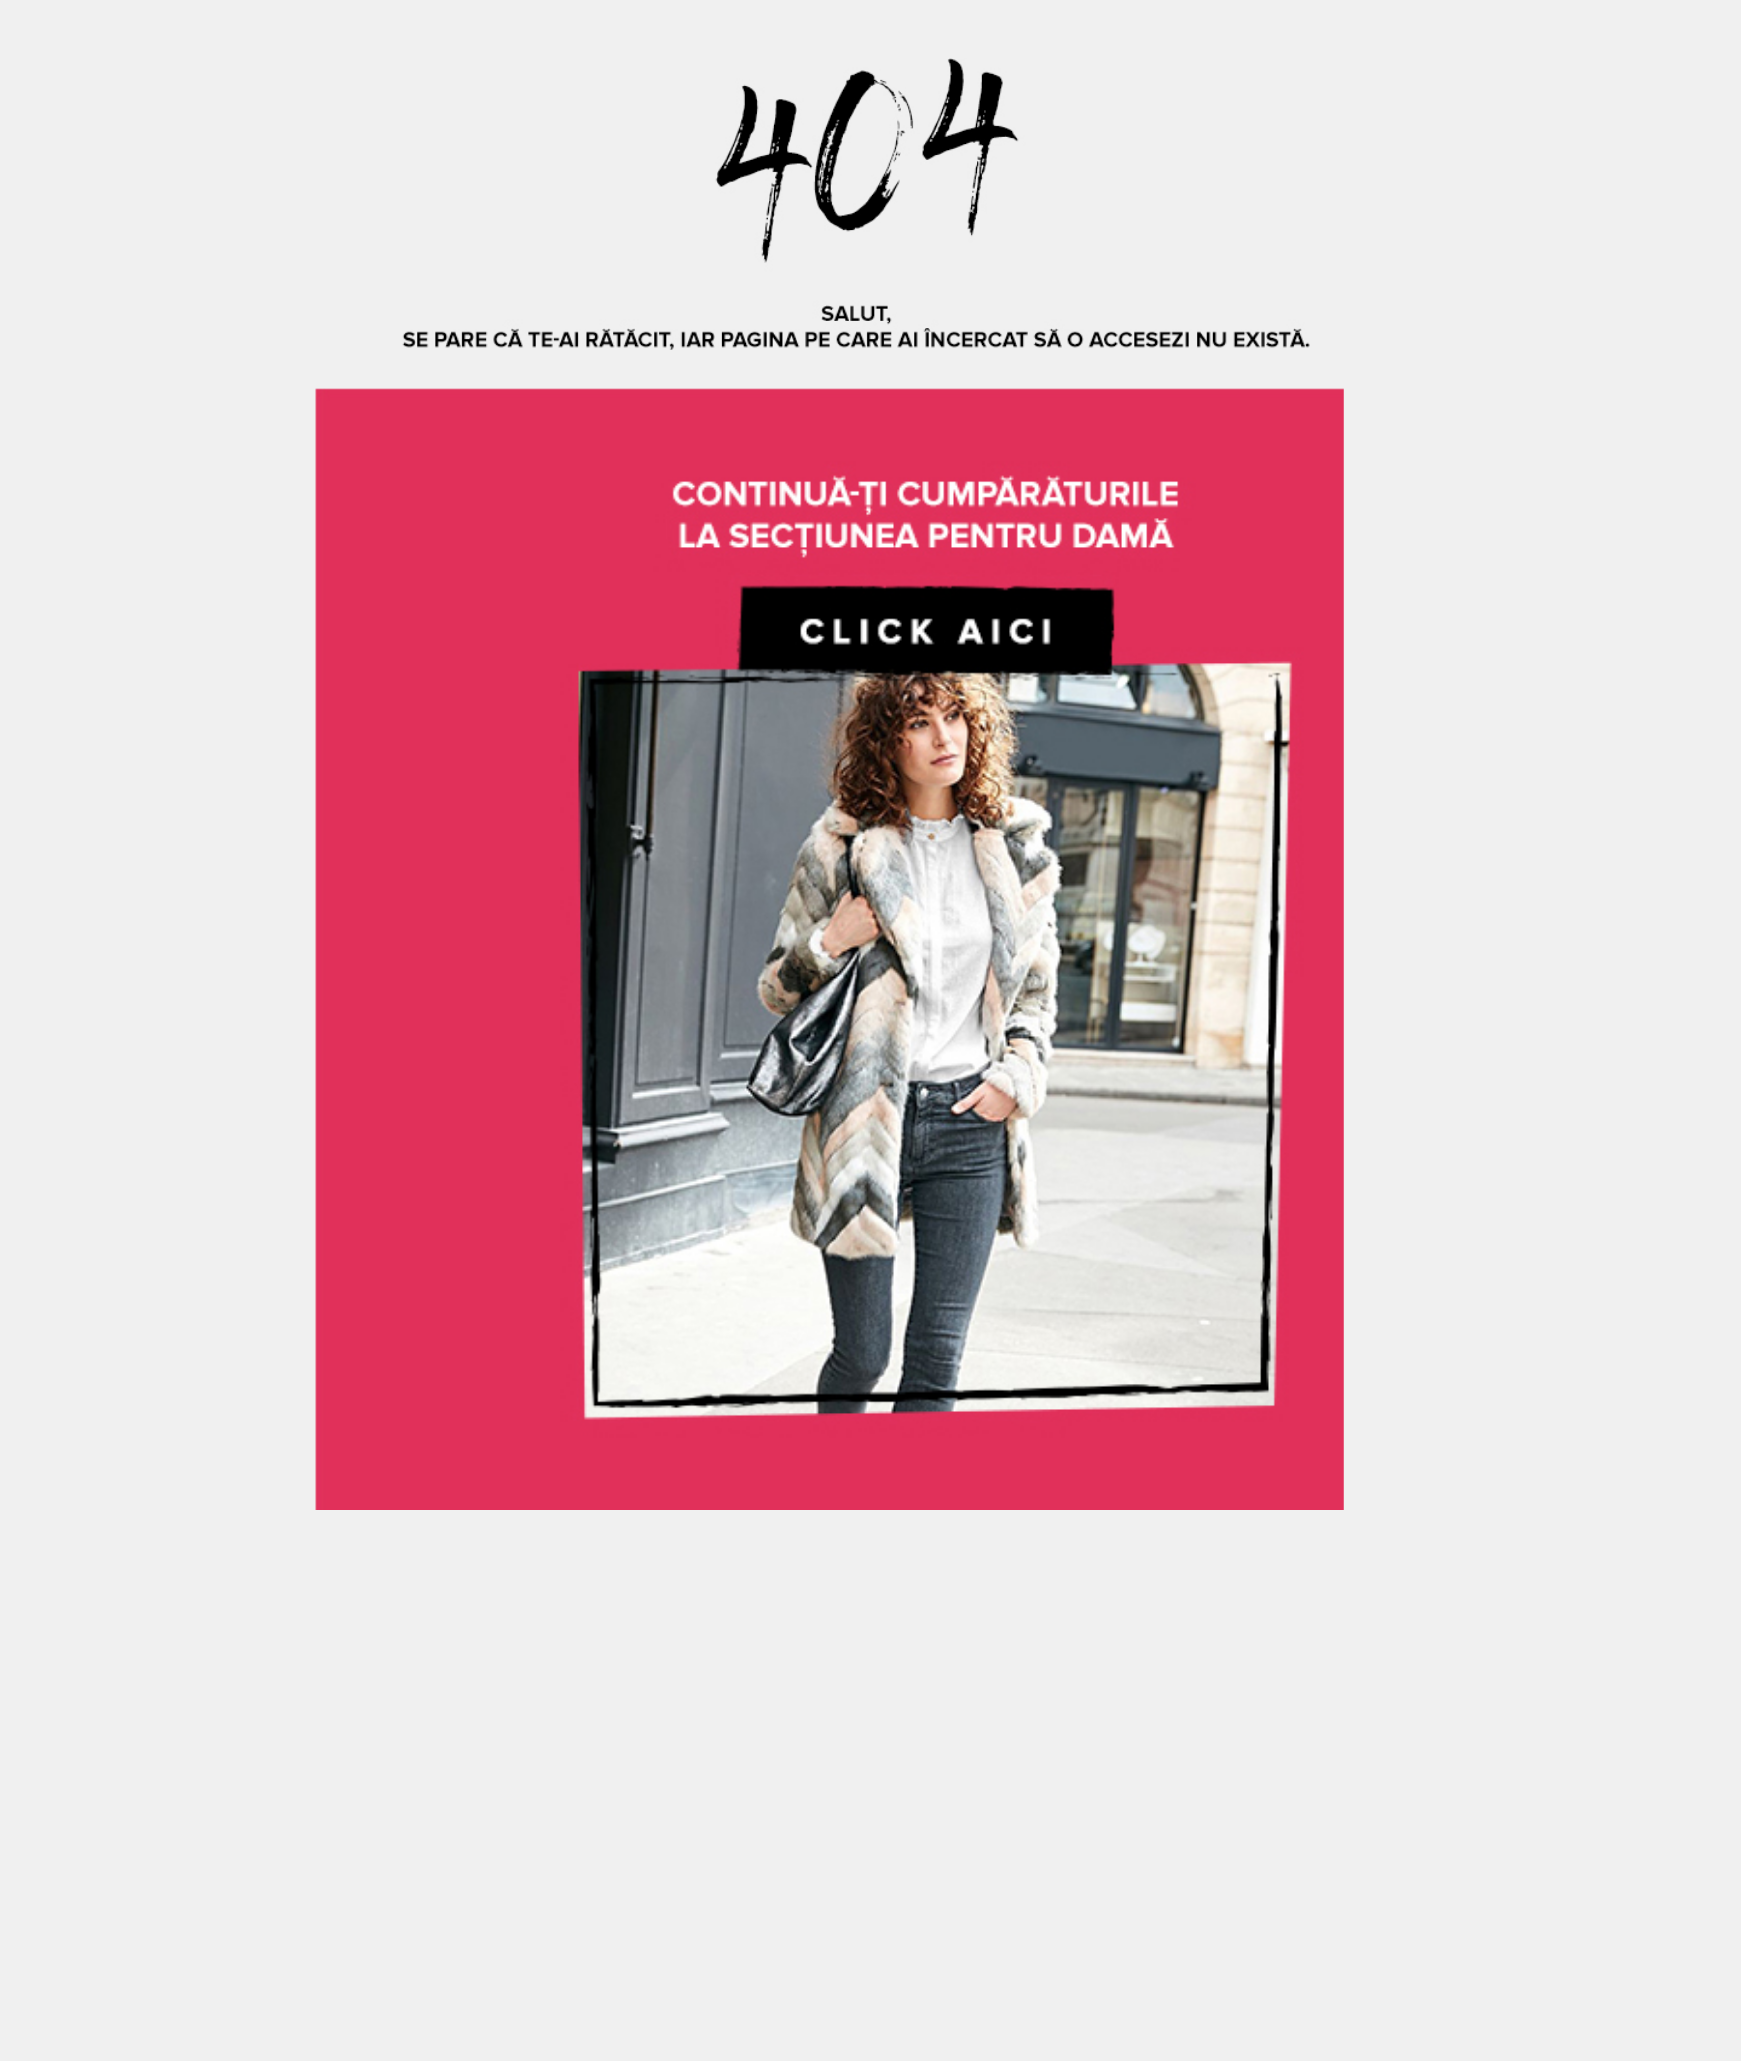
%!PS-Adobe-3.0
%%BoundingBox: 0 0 1741 2061
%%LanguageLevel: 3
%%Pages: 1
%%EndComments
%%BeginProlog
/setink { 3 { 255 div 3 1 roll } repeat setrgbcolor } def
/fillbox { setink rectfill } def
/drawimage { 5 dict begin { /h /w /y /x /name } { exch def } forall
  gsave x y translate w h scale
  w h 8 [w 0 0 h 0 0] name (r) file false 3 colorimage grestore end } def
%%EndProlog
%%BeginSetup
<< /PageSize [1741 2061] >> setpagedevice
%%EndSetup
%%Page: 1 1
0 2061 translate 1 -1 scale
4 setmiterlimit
0 0 1741 2061 240 240 240 fillbox
(assets/img1.rgb) 402 58 908 292 drawimage
(assets/img2.rgb) 315 388 1029 1122 drawimage
showpage
%%EOF
